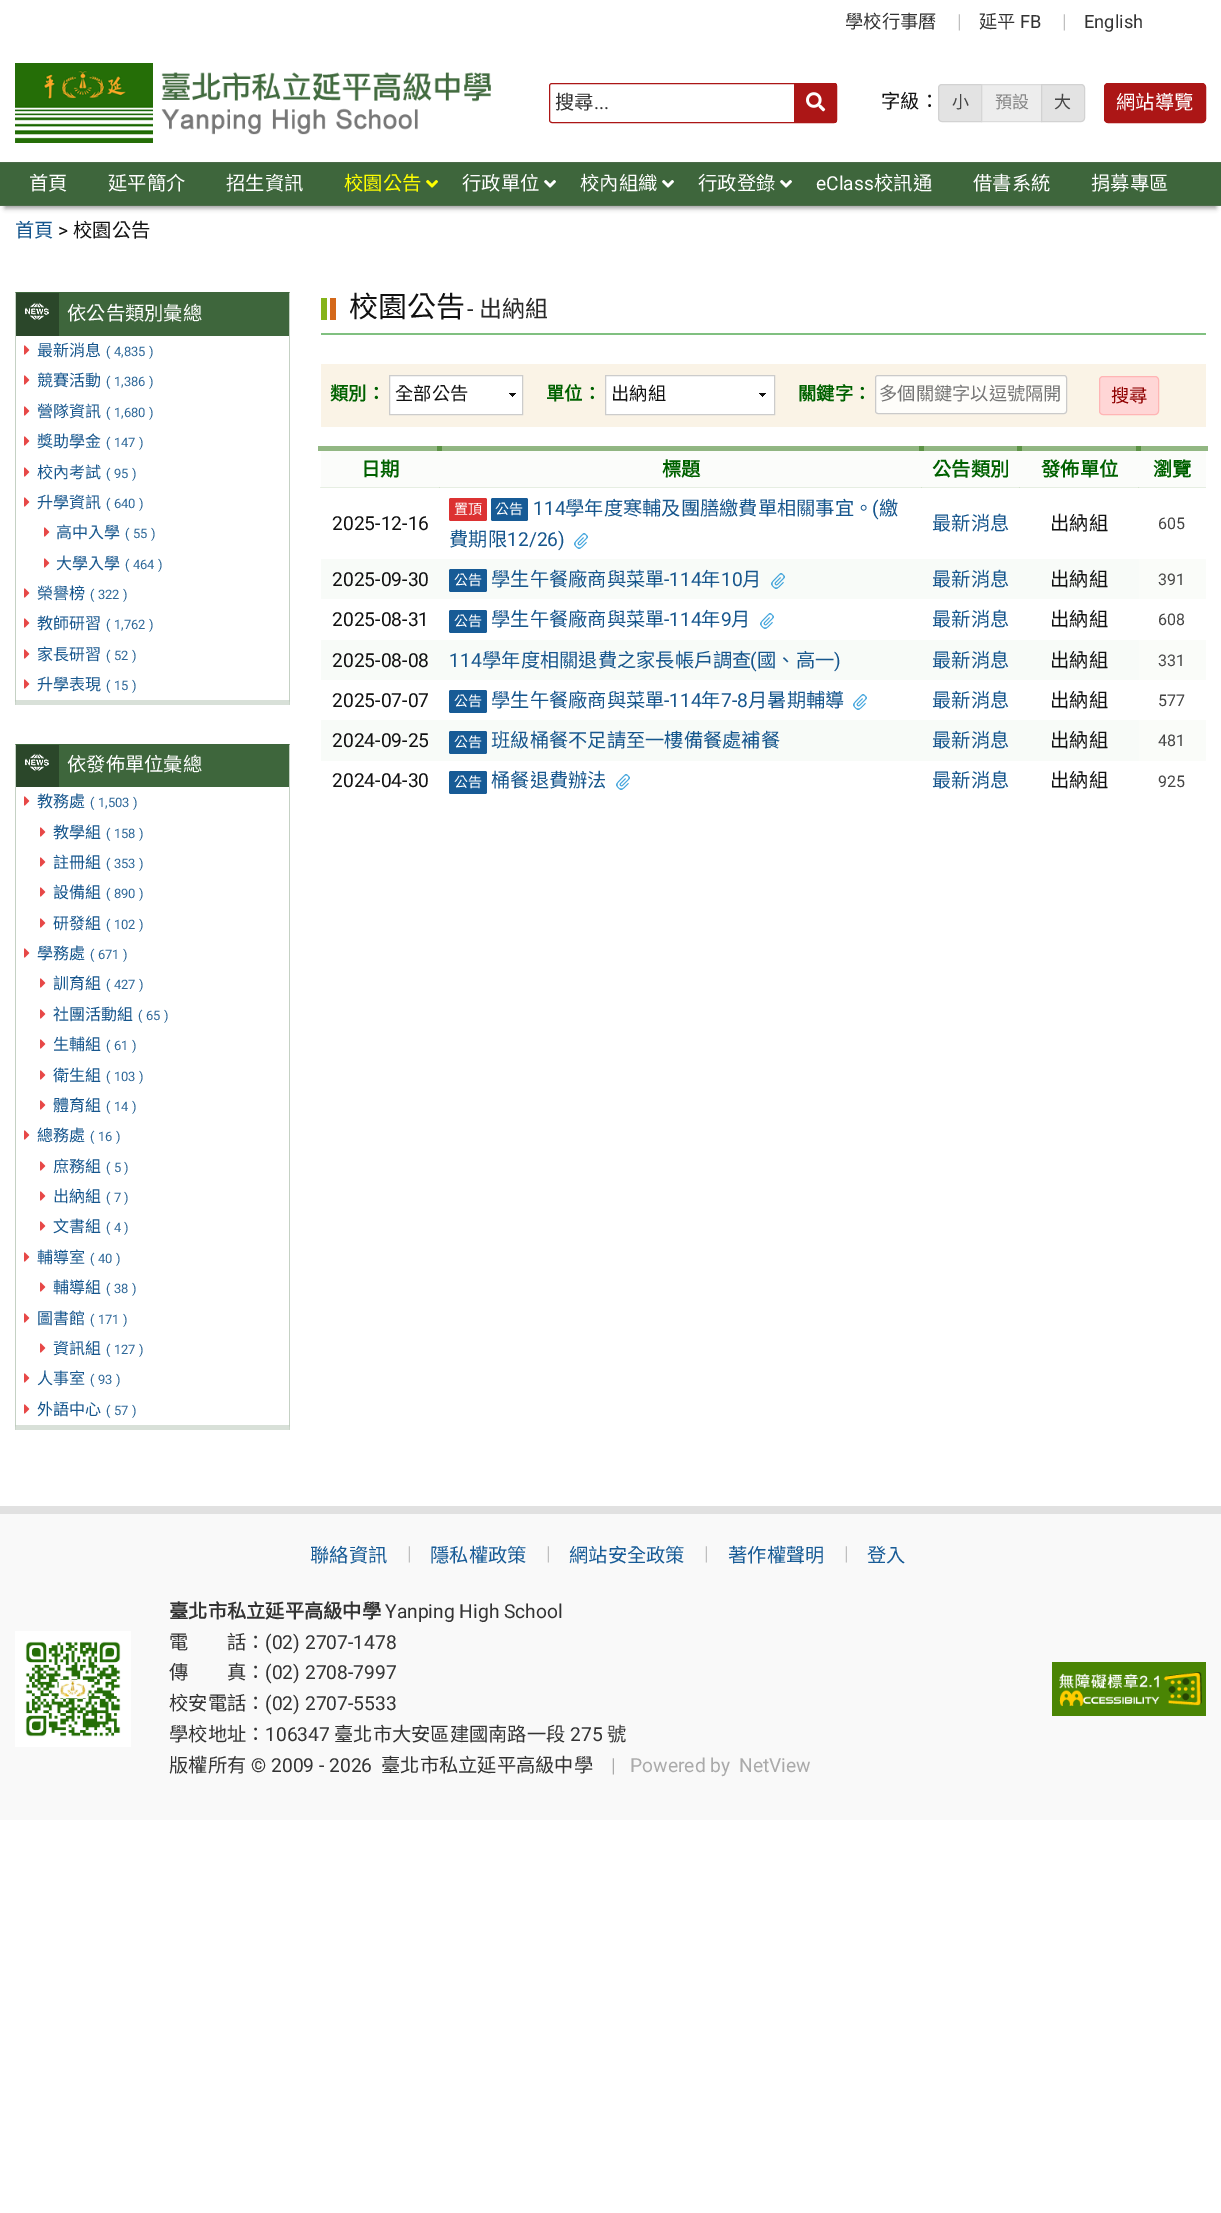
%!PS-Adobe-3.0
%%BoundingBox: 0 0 1221 2213
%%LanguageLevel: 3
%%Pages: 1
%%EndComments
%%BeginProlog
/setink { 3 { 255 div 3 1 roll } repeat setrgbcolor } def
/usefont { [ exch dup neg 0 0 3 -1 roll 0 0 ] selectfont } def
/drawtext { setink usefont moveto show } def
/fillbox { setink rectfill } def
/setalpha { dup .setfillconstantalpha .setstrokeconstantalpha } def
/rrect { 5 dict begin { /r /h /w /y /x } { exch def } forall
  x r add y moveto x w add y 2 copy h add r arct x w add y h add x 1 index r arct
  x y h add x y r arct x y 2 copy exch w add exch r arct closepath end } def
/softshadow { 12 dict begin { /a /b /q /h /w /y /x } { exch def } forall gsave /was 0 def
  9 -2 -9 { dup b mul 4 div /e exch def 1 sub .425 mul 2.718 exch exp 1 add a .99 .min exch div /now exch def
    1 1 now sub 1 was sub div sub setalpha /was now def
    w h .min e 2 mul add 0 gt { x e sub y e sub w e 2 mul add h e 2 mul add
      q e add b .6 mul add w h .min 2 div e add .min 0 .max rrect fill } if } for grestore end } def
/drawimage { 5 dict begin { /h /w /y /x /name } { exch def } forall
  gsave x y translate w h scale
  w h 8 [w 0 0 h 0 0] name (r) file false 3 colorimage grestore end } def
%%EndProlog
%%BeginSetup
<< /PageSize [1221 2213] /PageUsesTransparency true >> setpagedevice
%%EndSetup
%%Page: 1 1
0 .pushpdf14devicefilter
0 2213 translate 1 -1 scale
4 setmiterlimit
0 0 1221 2213 255 255 255 fillbox
318 446 124 5 146 183 131 fillbox
437 446 704 2 146 183 131 fillbox
437 446 5 2 92 147 69 fillbox
919 446 5 2 92 147 69 fillbox
1017 446 5 2 92 147 69 fillbox
1136 446 72 5 146 183 131 fillbox
1136 446 5 2 92 147 69 fillbox
320 487 1 1 233 241 230 fillbox
(學校行事曆) 845 28 /NotoSansCJKTC-Regular 18.25 51 51 51 drawtext
(|) 957 28 /Roboto-Regular 19.25 191 191 191 drawtext
(延平) 979 28 /NotoSansCJKTC-Regular 18.25 51 51 51 drawtext
(FB) 1020 28 /Roboto-Regular 18.25 51 51 51 drawtext
(|) 1062 28 /Roboto-Regular 19.25 191 191 191 drawtext
(English) 1084 28 /Roboto-Regular 18.25 51 51 51 drawtext
(assets/img1.rgb) 15 63 476 80 drawimage
172 22 22 setink
549.5 83.5 287 39 2.5 rrect stroke
(搜尋) 555 109 /NotoSansCJKTC-Regular 19.25 51 51 51 drawtext
(...) 594 109 /Roboto-Regular 19.25 51 51 51 drawtext
172 22 22 setink
794 83 moveto 834 83 lineto 835.5 83 837 84.5 837 86 curveto 837 120 lineto 837 121.5 835.5 123 834 123 curveto 794 123 lineto closepath fill
794 83 moveto 834 83 lineto 836 83 837 84 837 86 curveto 837 120 lineto 837 122 836 123 834 123 curveto 794 123 lineto closepath 794 84 moveto 834 84 lineto 835 84 836 85 836 86 curveto 836 120 lineto 836 121 835 122 834 122 curveto 794 122 lineto closepath eofill
(assets/img2.rgb) 806 92 20 20 drawimage
(字級：) 881 108 /NotoSansCJKTC-Regular 19.25 17 17 17 drawtext
227 227 227 setink
942 84.5 moveto 981.5 84.5 lineto 981.5 121.5 lineto 942 121.5 lineto 940 121.5 938.5 120 938.5 118 curveto 938.5 88 lineto 938.5 86 940 84.5 942 84.5 curveto closepath gsave fill grestore
210 210 210 setink
stroke
(小) 952 108 /NotoSansCJKTC-Regular 17 69 69 69 drawtext
0.65 setalpha
981 84 60 38 227 227 227 fillbox
210 210 210 setink
981.5 84.5 60 37 rectstroke
1 setalpha
(預設) 995 108 /NotoSansCJKTC-Regular 17 134 134 134 drawtext
227 227 227 setink
1041.5 84.5 moveto 1081 84.5 lineto 1083 84.5 1084.5 86 1084.5 88 curveto 1084.5 118 lineto 1084.5 120 1083 121.5 1081 121.5 curveto 1041.5 121.5 lineto closepath gsave fill grestore
210 210 210 setink
stroke
(大) 1054 108 /NotoSansCJKTC-Regular 17 69 69 69 drawtext
172 22 22 setink
1104.5 83.5 101 39 3.5 rrect gsave fill grestore
stroke
(網站導覽) 1116 109 /NotoSansCJKTC-Regular 19.25 255 255 255 drawtext
0 0 0 setink
5 174 1211 34 0 2.5 0.4 softshadow
0 163 1221 42 62 102 60 fillbox
0 162 1221 1 75 107 73 fillbox
0 205 1221 1 75 107 73 fillbox
(首頁) 29 190 /NotoSansCJKTC-Regular 19.25 255 255 255 drawtext
(延平簡介) 108 190 /NotoSansCJKTC-Regular 19.25 255 255 255 drawtext
(招生資訊) 226 190 /NotoSansCJKTC-Regular 19.25 255 255 255 drawtext
(校園公告) 344 190 /NotoSansCJKTC-Regular 19.25 255 255 0 drawtext
(assets/img3.rgb) 426 180 12 8 drawimage
(行政單位) 462 190 /NotoSansCJKTC-Regular 19.25 255 255 255 drawtext
(assets/img4.rgb) 544 180 12 8 drawimage
(校內組織) 580 190 /NotoSansCJKTC-Regular 19.25 255 255 255 drawtext
(assets/img4.rgb) 662 180 12 8 drawimage
(行政登錄) 698 190 /NotoSansCJKTC-Regular 19.25 255 255 255 drawtext
(assets/img4.rgb) 780 180 12 8 drawimage
(eClass) 816 190 /Roboto-Regular 19.25 255 255 255 drawtext
(校訊通) 874 190 /NotoSansCJKTC-Regular 19.25 255 255 255 drawtext
(借書系統) 973 190 /NotoSansCJKTC-Regular 19.25 255 255 255 drawtext
(捐募專區) 1091 190 /NotoSansCJKTC-Regular 19.25 255 255 255 drawtext
(首頁) 15 237 /NotoSansCJKTC-Regular 19.25 22 86 141 drawtext
(>) 58 237 /Roboto-Regular 19.25 17 17 17 drawtext
(校園公告) 73 237 /NotoSansCJKTC-Regular 19.25 17 17 17 drawtext
62 102 60 setink
15 292 moveto 290 292 lineto 289 293 lineto 16 293 lineto closepath fill
0.3 setalpha
290 292 moveto 290 705 lineto 289 700 lineto 289 293 lineto closepath fill
0.2 setalpha
290 705 moveto 15 705 lineto 16 700 lineto 289 700 lineto closepath fill
0.3 setalpha
15 705 moveto 15 292 lineto 16 293 lineto 16 700 lineto closepath fill
1 setalpha
59 293 230 43 62 102 60 fillbox
16 293 43 43 43 71 42 fillbox
(assets/img5.rgb) 25 302 24 18 drawimage
(依公告類別彙總) 67 320 /NotoSansCJKTC-Regular 19.25 255 255 255 drawtext
(assets/img6.rgb) 24 345 6 10 drawimage
(最新消息) 37 356 /NotoSansCJKTC-Regular 16 22 86 141 drawtext
(\( 4,835 \)) 106 356 /Roboto-Regular 13 45 103 152 drawtext
(assets/img6.rgb) 24 375 6 10 drawimage
(競賽活動) 37 386 /NotoSansCJKTC-Regular 16 22 86 141 drawtext
(\( 1,386 \)) 106 386 /Roboto-Regular 13 45 103 152 drawtext
(assets/img6.rgb) 24 406 6 10 drawimage
(營隊資訊) 37 417 /NotoSansCJKTC-Regular 16 22 86 141 drawtext
(\( 1,680 \)) 106 417 /Roboto-Regular 13 45 103 152 drawtext
(assets/img6.rgb) 24 436 6 10 drawimage
(獎助學金) 37 447 /NotoSansCJKTC-Regular 16 22 86 141 drawtext
(\( 147 \)) 106 447 /Roboto-Regular 13 45 103 152 drawtext
(assets/img6.rgb) 24 467 6 10 drawimage
(校內考試) 37 478 /NotoSansCJKTC-Regular 16 22 86 141 drawtext
(\( 95 \)) 106 478 /Roboto-Regular 13 45 103 152 drawtext
(assets/img6.rgb) 24 497 6 10 drawimage
(升學資訊) 37 508 /NotoSansCJKTC-Regular 16 22 86 141 drawtext
(\( 640 \)) 106 508 /Roboto-Regular 13 45 103 152 drawtext
(assets/img6.rgb) 44 527 6 10 drawimage
(高中入學) 56 538 /NotoSansCJKTC-Regular 16 22 86 141 drawtext
(\( 55 \)) 125 538 /Roboto-Regular 13 45 103 152 drawtext
(assets/img6.rgb) 44 558 6 10 drawimage
(大學入學) 56 569 /NotoSansCJKTC-Regular 16 22 86 141 drawtext
(\( 464 \)) 125 569 /Roboto-Regular 13 45 103 152 drawtext
(assets/img6.rgb) 24 588 6 10 drawimage
(榮譽榜) 37 599 /NotoSansCJKTC-Regular 16 22 86 141 drawtext
(\( 322 \)) 90 599 /Roboto-Regular 13 45 103 152 drawtext
(assets/img6.rgb) 24 618 6 10 drawimage
(教師研習) 37 629 /NotoSansCJKTC-Regular 16 22 86 141 drawtext
(\( 1,762 \)) 106 629 /Roboto-Regular 13 45 103 152 drawtext
(assets/img6.rgb) 24 649 6 10 drawimage
(家長研習) 37 660 /NotoSansCJKTC-Regular 16 22 86 141 drawtext
(\( 52 \)) 106 660 /Roboto-Regular 13 45 103 152 drawtext
(assets/img6.rgb) 24 679 6 10 drawimage
(升學表現) 37 690 /NotoSansCJKTC-Regular 16 22 86 141 drawtext
(\( 15 \)) 106 690 /Roboto-Regular 13 45 103 152 drawtext
62 102 60 setink
15 744 moveto 290 744 lineto 289 745 lineto 16 745 lineto closepath fill
0.3 setalpha
290 744 moveto 290 1430 lineto 289 1425 lineto 289 745 lineto closepath fill
0.2 setalpha
290 1430 moveto 15 1430 lineto 16 1425 lineto 289 1425 lineto closepath fill
0.3 setalpha
15 1430 moveto 15 744 lineto 16 745 lineto 16 1425 lineto closepath fill
1 setalpha
59 745 230 42 62 102 60 fillbox
16 745 43 42 43 71 42 fillbox
(assets/img5.rgb) 25 753 24 18 drawimage
(依發佈單位彙總) 67 771 /NotoSansCJKTC-Regular 19.25 255 255 255 drawtext
(assets/img6.rgb) 24 796 6 10 drawimage
(教務處) 37 807 /NotoSansCJKTC-Regular 16 22 86 141 drawtext
(\( 1,503 \)) 90 807 /Roboto-Regular 13 45 103 152 drawtext
(assets/img6.rgb) 40 827 6 10 drawimage
(教學組) 53 838 /NotoSansCJKTC-Regular 16 22 86 141 drawtext
(\( 158 \)) 106 838 /Roboto-Regular 13 45 103 152 drawtext
(assets/img6.rgb) 40 857 6 10 drawimage
(註冊組) 53 868 /NotoSansCJKTC-Regular 16 22 86 141 drawtext
(\( 353 \)) 106 868 /Roboto-Regular 13 45 103 152 drawtext
(assets/img6.rgb) 40 887 6 10 drawimage
(設備組) 53 898 /NotoSansCJKTC-Regular 16 22 86 141 drawtext
(\( 890 \)) 106 898 /Roboto-Regular 13 45 103 152 drawtext
(assets/img6.rgb) 40 918 6 10 drawimage
(研發組) 53 929 /NotoSansCJKTC-Regular 16 22 86 141 drawtext
(\( 102 \)) 106 929 /Roboto-Regular 13 45 103 152 drawtext
(assets/img6.rgb) 24 948 6 10 drawimage
(學務處) 37 959 /NotoSansCJKTC-Regular 16 22 86 141 drawtext
(\( 671 \)) 90 959 /Roboto-Regular 13 45 103 152 drawtext
(assets/img6.rgb) 40 978 6 10 drawimage
(訓育組) 53 989 /NotoSansCJKTC-Regular 16 22 86 141 drawtext
(\( 427 \)) 106 989 /Roboto-Regular 13 45 103 152 drawtext
(assets/img6.rgb) 40 1009 6 10 drawimage
(社團活動組) 53 1020 /NotoSansCJKTC-Regular 16 22 86 141 drawtext
(\( 65 \)) 138 1020 /Roboto-Regular 13 45 103 152 drawtext
(assets/img6.rgb) 40 1039 6 10 drawimage
(生輔組) 53 1050 /NotoSansCJKTC-Regular 16 22 86 141 drawtext
(\( 61 \)) 106 1050 /Roboto-Regular 13 45 103 152 drawtext
(assets/img6.rgb) 40 1070 6 10 drawimage
(衛生組) 53 1081 /NotoSansCJKTC-Regular 16 22 86 141 drawtext
(\( 103 \)) 106 1081 /Roboto-Regular 13 45 103 152 drawtext
(assets/img6.rgb) 40 1100 6 10 drawimage
(體育組) 53 1111 /NotoSansCJKTC-Regular 16 22 86 141 drawtext
(\( 14 \)) 106 1111 /Roboto-Regular 13 45 103 152 drawtext
(assets/img6.rgb) 24 1130 6 10 drawimage
(總務處) 37 1141 /NotoSansCJKTC-Regular 16 22 86 141 drawtext
(\( 16 \)) 90 1141 /Roboto-Regular 13 45 103 152 drawtext
(assets/img6.rgb) 40 1161 6 10 drawimage
(庶務組) 53 1172 /NotoSansCJKTC-Regular 16 22 86 141 drawtext
(\( 5 \)) 106 1172 /Roboto-Regular 13 45 103 152 drawtext
(assets/img6.rgb) 40 1191 6 10 drawimage
(出納組) 53 1202 /NotoSansCJKTC-Regular 16 22 86 141 drawtext
(\( 7 \)) 106 1202 /Roboto-Regular 13 45 103 152 drawtext
(assets/img6.rgb) 40 1221 6 10 drawimage
(文書組) 53 1232 /NotoSansCJKTC-Regular 16 22 86 141 drawtext
(\( 4 \)) 106 1232 /Roboto-Regular 13 45 103 152 drawtext
(assets/img6.rgb) 24 1252 6 10 drawimage
(輔導室) 37 1263 /NotoSansCJKTC-Regular 16 22 86 141 drawtext
(\( 40 \)) 90 1263 /Roboto-Regular 13 45 103 152 drawtext
(assets/img6.rgb) 40 1282 6 10 drawimage
(輔導組) 53 1293 /NotoSansCJKTC-Regular 16 22 86 141 drawtext
(\( 38 \)) 106 1293 /Roboto-Regular 13 45 103 152 drawtext
(assets/img6.rgb) 24 1313 6 10 drawimage
(圖書館) 37 1324 /NotoSansCJKTC-Regular 16 22 86 141 drawtext
(\( 171 \)) 90 1324 /Roboto-Regular 13 45 103 152 drawtext
(assets/img6.rgb) 40 1343 6 10 drawimage
(資訊組) 53 1354 /NotoSansCJKTC-Regular 16 22 86 141 drawtext
(\( 127 \)) 106 1354 /Roboto-Regular 13 45 103 152 drawtext
(assets/img6.rgb) 24 1373 6 10 drawimage
(人事室) 37 1384 /NotoSansCJKTC-Regular 16 22 86 141 drawtext
(\( 93 \)) 90 1384 /Roboto-Regular 13 45 103 152 drawtext
(assets/img6.rgb) 24 1404 6 10 drawimage
(外語中心) 37 1415 /NotoSansCJKTC-Regular 16 22 86 141 drawtext
(\( 57 \)) 106 1415 /Roboto-Regular 13 45 103 152 drawtext
321 333 885 2 128 192 128 fillbox
(assets/img7.rgb) 321 298 15 22 drawimage
(校園公告) 349 317 /NotoSansCJKTC-Regular 29 17 17 17 drawtext
(-) 467 317 /Roboto-Regular 23 41 41 41 drawtext
(出納組) 479 317 /NotoSansCJKTC-Regular 23 41 41 41 drawtext
321 364 885 63 250 243 230 fillbox
(類別：) 330 400 /NotoSansCJKTC-Bold 18.25 0 97 0 drawtext
390 376 132 38 255 255 255 fillbox
(assets/img8.rgb) 509 393 7 4 drawimage
204 204 204 setink
389.5 375.5 133 39 rectstroke
(全部公告) 395 400 /NotoSansCJKTC-Regular 18.25 17 17 17 drawtext
(單位：) 546 400 /NotoSansCJKTC-Bold 18.25 0 97 0 drawtext
606 376 168 38 255 255 255 fillbox
(assets/img8.rgb) 759 393 7 4 drawimage
204 204 204 setink
605.5 375.5 169 39 rectstroke
(出納組) 611 400 /NotoSansCJKTC-Regular 18.25 17 17 17 drawtext
(關鍵字：) 798 400 /NotoSansCJKTC-Bold 18.25 0 97 0 drawtext
254 253 250 setink
875.5 375.5 191 38 2.5 rrect gsave fill grestore
202 202 202 setink
stroke
(多個關鍵字以逗號隔開) 879 400 /NotoSansCJKTC-Regular 18.25 117 117 117 drawtext
255 214 214 setink
1099.5 376.5 59 38 3.5 rrect gsave fill grestore
255 181 181 setink
stroke
(搜尋) 1111 402 /NotoSansCJKTC-Regular 18.25 143 0 0 drawtext
321 451 885 36 251 252 250 fillbox
437 448 3 3 91 146 68 fillbox
321 487 885 1 230 238 226 fillbox
439 487 1 1 211 225 204 fillbox
(日期) 361 476 /NotoSansCJKTC-Bold 19.25 0 97 0 drawtext
440 448 699 3 144 181 129 fillbox
440 448 2 3 91 146 68 fillbox
919 448 5 3 91 146 68 fillbox
921 487 1 1 211 225 204 fillbox
(標題) 662 476 /NotoSansCJKTC-Bold 19.25 0 97 0 drawtext
1017 448 5 3 91 146 68 fillbox
1019 487 1 1 211 225 204 fillbox
(公告類別) 932 476 /NotoSansCJKTC-Bold 19.25 0 97 0 drawtext
1136 448 5 3 91 146 68 fillbox
(發佈單位) 1041 476 /NotoSansCJKTC-Bold 19.25 0 97 0 drawtext
1138 487 1 1 211 225 204 fillbox
(瀏覽) 1153 476 /NotoSansCJKTC-Bold 19.25 0 97 0 drawtext
(2025-12-16) 332 530 /Roboto-Regular 19.25 17 17 17 drawtext
220 50 50 setink
449 498 38 23 2 rrect fill
(置頂) 454 514 /NotoSansCJKTC-Regular 14 255 255 255 drawtext
23 91 150 setink
491 498 37 23 2 rrect fill
(公告) 495 514 /NotoSansCJKTC-Regular 14 255 255 255 drawtext
(114) 533 515 /Roboto-Regular 19.25 22 86 141 drawtext
(學年度寒輔及團膳繳費單相關事宜。) 565 515 /NotoSansCJKTC-Regular 19.25 22 86 141 drawtext
(\() 872 515 /Roboto-Regular 19.25 22 86 141 drawtext
(繳) 879 515 /NotoSansCJKTC-Regular 19.25 22 86 141 drawtext
(費期限) 449 546 /NotoSansCJKTC-Regular 19.25 22 86 141 drawtext
(12/26\)) 507 546 /Roboto-Regular 19.25 22 86 141 drawtext
(assets/img9.rgb) 574 533 14 16 drawimage
(最新消息) 932 530 /NotoSansCJKTC-Regular 19.25 22 86 141 drawtext
(出納組) 1050 530 /NotoSansCJKTC-Regular 19.25 17 17 17 drawtext
(605) 1158 529 /Roboto-Regular 16 69 69 69 drawtext
321 559 818 40 248 251 248 fillbox
(2025-09-30) 332 586 /Roboto-Regular 19.25 17 17 17 drawtext
23 91 150 setink
449 569 38 23 2 rrect fill
(公告) 454 585 /NotoSansCJKTC-Regular 14 255 255 255 drawtext
(學生午餐廠商與菜單) 491 586 /NotoSansCJKTC-Regular 19.25 22 86 141 drawtext
(-114) 664 586 /Roboto-Regular 19.25 22 86 141 drawtext
(年) 701 586 /NotoSansCJKTC-Regular 19.25 22 86 141 drawtext
(10) 721 586 /Roboto-Regular 19.25 22 86 141 drawtext
(月) 742 586 /NotoSansCJKTC-Regular 19.25 22 86 141 drawtext
(assets/img10.rgb) 771 573 14 16 drawimage
(最新消息) 932 586 /NotoSansCJKTC-Regular 19.25 22 86 141 drawtext
(出納組) 1050 586 /NotoSansCJKTC-Regular 19.25 17 17 17 drawtext
1139 559 67 40 250 252 249 fillbox
(391) 1158 585 /Roboto-Regular 16 69 69 69 drawtext
(2025-08-31) 332 626 /Roboto-Regular 19.25 17 17 17 drawtext
23 91 150 setink
449 610 38 23 2 rrect fill
(公告) 454 626 /NotoSansCJKTC-Regular 14 255 255 255 drawtext
(學生午餐廠商與菜單) 491 626 /NotoSansCJKTC-Regular 19.25 22 86 141 drawtext
(-114) 664 626 /Roboto-Regular 19.25 22 86 141 drawtext
(年) 701 626 /NotoSansCJKTC-Regular 19.25 22 86 141 drawtext
(9) 721 626 /Roboto-Regular 19.25 22 86 141 drawtext
(月) 731 626 /NotoSansCJKTC-Regular 19.25 22 86 141 drawtext
(assets/img9.rgb) 760 613 14 16 drawimage
(最新消息) 932 626 /NotoSansCJKTC-Regular 19.25 22 86 141 drawtext
(出納組) 1050 626 /NotoSansCJKTC-Regular 19.25 17 17 17 drawtext
(608) 1158 625 /Roboto-Regular 16 69 69 69 drawtext
321 640 818 40 248 251 248 fillbox
(2025-08-08) 332 667 /Roboto-Regular 19.25 17 17 17 drawtext
(114) 449 667 /Roboto-Regular 19.25 22 86 141 drawtext
(學年度相關退費之家長帳戶調查) 482 667 /NotoSansCJKTC-Regular 19.25 22 86 141 drawtext
(\() 750 667 /Roboto-Regular 19.25 22 86 141 drawtext
(國、高一) 757 667 /NotoSansCJKTC-Regular 19.25 22 86 141 drawtext
(\)) 834 667 /Roboto-Regular 19.25 22 86 141 drawtext
(最新消息) 932 667 /NotoSansCJKTC-Regular 19.25 22 86 141 drawtext
(出納組) 1050 667 /NotoSansCJKTC-Regular 19.25 17 17 17 drawtext
1139 640 67 40 250 252 249 fillbox
(331) 1158 666 /Roboto-Regular 16 69 69 69 drawtext
(2025-07-07) 332 707 /Roboto-Regular 19.25 17 17 17 drawtext
23 91 150 setink
449 690 38 23 2 rrect fill
(公告) 454 706 /NotoSansCJKTC-Regular 14 255 255 255 drawtext
(學生午餐廠商與菜單) 491 707 /NotoSansCJKTC-Regular 19.25 22 86 141 drawtext
(-114) 664 707 /Roboto-Regular 19.25 22 86 141 drawtext
(年) 701 707 /NotoSansCJKTC-Regular 19.25 22 86 141 drawtext
(7-8) 721 707 /Roboto-Regular 19.25 22 86 141 drawtext
(月暑期輔導) 748 707 /NotoSansCJKTC-Regular 19.25 22 86 141 drawtext
(assets/img9.rgb) 853 694 14 16 drawimage
(最新消息) 932 707 /NotoSansCJKTC-Regular 19.25 22 86 141 drawtext
(出納組) 1050 707 /NotoSansCJKTC-Regular 19.25 17 17 17 drawtext
(577) 1158 706 /Roboto-Regular 16 69 69 69 drawtext
321 720 818 41 248 251 248 fillbox
(2024-09-25) 332 747 /Roboto-Regular 19.25 17 17 17 drawtext
23 91 150 setink
449 731 38 23 2 rrect fill
(公告) 454 747 /NotoSansCJKTC-Regular 14 255 255 255 drawtext
(班級桶餐不足請至一樓備餐處補餐) 491 747 /NotoSansCJKTC-Regular 19.25 22 86 141 drawtext
(最新消息) 932 747 /NotoSansCJKTC-Regular 19.25 22 86 141 drawtext
(出納組) 1050 747 /NotoSansCJKTC-Regular 19.25 17 17 17 drawtext
1139 720 67 41 250 252 249 fillbox
(481) 1158 746 /Roboto-Regular 16 69 69 69 drawtext
(2024-04-30) 332 787 /Roboto-Regular 19.25 17 17 17 drawtext
23 91 150 setink
449 771 38 23 2 rrect fill
(公告) 454 787 /NotoSansCJKTC-Regular 14 255 255 255 drawtext
(桶餐退費辦法) 491 787 /NotoSansCJKTC-Regular 19.25 22 86 141 drawtext
(assets/img9.rgb) 616 774 14 16 drawimage
(最新消息) 932 787 /NotoSansCJKTC-Regular 19.25 22 86 141 drawtext
(出納組) 1050 787 /NotoSansCJKTC-Regular 19.25 17 17 17 drawtext
(925) 1158 787 /Roboto-Regular 16 69 69 69 drawtext
0 1514 1221 306 249 249 249 fillbox
0 1506 1221 8 225 225 225 fillbox
(聯絡資訊) 310 1562 /NotoSansCJKTC-Regular 19.25 23 91 150 drawtext
(|) 407 1560 /Roboto-Regular 19.25 191 191 191 drawtext
(隱私權政策) 430 1562 /NotoSansCJKTC-Regular 19.25 23 91 150 drawtext
(|) 546 1560 /Roboto-Regular 19.25 191 191 191 drawtext
(網站安全政策) 569 1562 /NotoSansCJKTC-Regular 19.25 23 91 150 drawtext
(|) 704 1560 /Roboto-Regular 19.25 191 191 191 drawtext
(著作權聲明) 728 1562 /NotoSansCJKTC-Regular 19.25 23 91 150 drawtext
(|) 844 1560 /Roboto-Regular 19.25 191 191 191 drawtext
(登入) 867 1562 /NotoSansCJKTC-Regular 19.25 23 91 150 drawtext
(assets/img11.rgb) 15 1631 116 116 drawimage
(臺北市私立延平高級中學) 169 1618 /NotoSansCJKTC-Bold 19.25 51 51 51 drawtext
(Yanping High School) 385 1618 /Roboto-Regular 19.25 51 51 51 drawtext
(電　　話：) 169 1649 /NotoSansCJKTC-Regular 19.25 51 51 51 drawtext
(\(02\) 2707-1478) 265 1649 /Roboto-Regular 19.25 51 51 51 drawtext
(傳　　真：) 169 1679 /NotoSansCJKTC-Regular 19.25 51 51 51 drawtext
(\(02\) 2708-7997) 265 1679 /Roboto-Regular 19.25 51 51 51 drawtext
(校安電話：) 169 1710 /NotoSansCJKTC-Regular 19.25 51 51 51 drawtext
(\(02\) 2707-5533) 265 1710 /Roboto-Regular 19.25 51 51 51 drawtext
(學校地址：) 169 1741 /NotoSansCJKTC-Regular 19.25 51 51 51 drawtext
(106347) 265 1741 /Roboto-Regular 19.25 51 51 51 drawtext
(臺北市大安區建國南路一段) 334 1741 /NotoSansCJKTC-Regular 19.25 51 51 51 drawtext
(275) 570 1741 /Roboto-Regular 19.25 51 51 51 drawtext
(號) 607 1741 /NotoSansCJKTC-Regular 19.25 51 51 51 drawtext
(版權所有) 169 1772 /NotoSansCJKTC-Regular 19.25 51 51 51 drawtext
(© 2009 - 2026) 251 1772 /Roboto-Regular 19.25 51 51 51 drawtext
(臺北市私立延平高級中學) 381 1772 /NotoSansCJKTC-Regular 19.25 51 51 51 drawtext
(|   Powered by) 611 1772 /Roboto-Regular 19.25 170 170 170 drawtext
(NetView) 739 1772 /Roboto-Regular 19.25 170 170 170 drawtext
(assets/img12.rgb) 1052 1662 154 54 drawimage
.poppdf14devicefilter showpage
%%EOF
